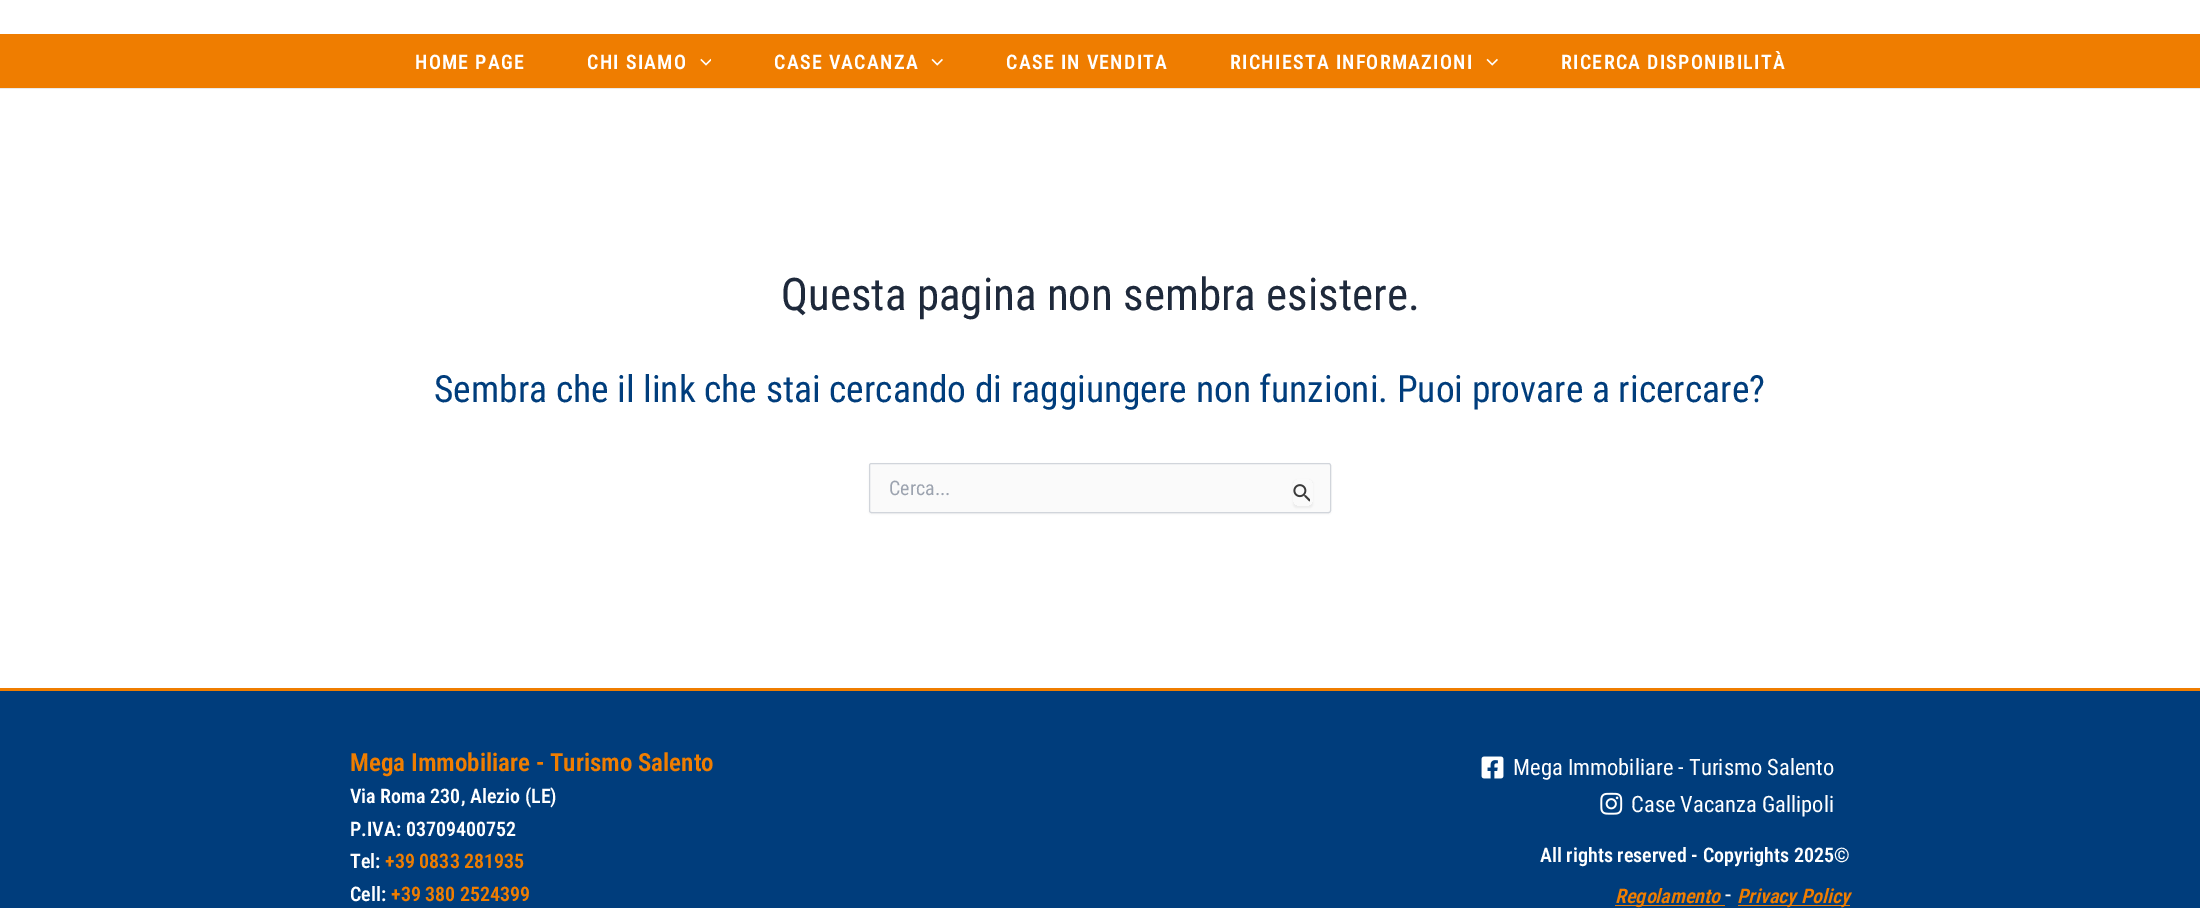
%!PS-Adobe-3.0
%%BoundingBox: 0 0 2200 908
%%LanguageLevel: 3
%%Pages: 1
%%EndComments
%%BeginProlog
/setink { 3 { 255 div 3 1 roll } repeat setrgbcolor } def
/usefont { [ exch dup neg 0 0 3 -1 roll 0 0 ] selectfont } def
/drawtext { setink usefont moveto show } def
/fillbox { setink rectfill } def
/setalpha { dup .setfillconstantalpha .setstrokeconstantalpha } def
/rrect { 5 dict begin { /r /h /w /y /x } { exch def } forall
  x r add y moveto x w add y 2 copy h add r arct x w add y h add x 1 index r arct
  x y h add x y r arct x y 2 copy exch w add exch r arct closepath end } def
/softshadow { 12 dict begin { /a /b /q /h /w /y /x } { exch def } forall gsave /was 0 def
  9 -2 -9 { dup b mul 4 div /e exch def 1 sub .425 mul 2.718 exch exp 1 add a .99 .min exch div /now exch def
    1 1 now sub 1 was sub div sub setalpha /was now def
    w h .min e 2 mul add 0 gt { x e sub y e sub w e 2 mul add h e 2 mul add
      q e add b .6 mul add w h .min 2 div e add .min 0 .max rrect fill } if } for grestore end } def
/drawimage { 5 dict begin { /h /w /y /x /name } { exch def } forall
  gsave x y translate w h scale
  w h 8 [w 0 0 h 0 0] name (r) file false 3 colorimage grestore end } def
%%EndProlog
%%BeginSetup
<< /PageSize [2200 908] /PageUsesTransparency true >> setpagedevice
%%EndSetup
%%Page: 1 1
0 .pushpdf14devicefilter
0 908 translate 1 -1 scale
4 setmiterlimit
0 0 2200 908 255 255 255 fillbox
0 34 2200 54 239 125 0 fillbox
0 88 2200 1 234 234 234 fillbox
/RobotoCondensed-SemiBold 20 usefont
255 255 255 setink
415 69 moveto 1.25 0 (HOME PAGE) ashow
587 69 moveto 1.25 0 (CHI SIAMO) ashow
(assets/img1.rgb) 700 58 11 8 drawimage
774 69 moveto 1.25 0 (CASE VACANZA) ashow
(assets/img2.rgb) 931 58 12 8 drawimage
1006 69 moveto 1.25 0 (CASE IN VENDITA) ashow
1230 69 moveto 1.25 0 (RICHIESTA INFORMAZIONI) ashow
(assets/img2.rgb) 1486 58 12 8 drawimage
1561 69 moveto 1.25 0 (RICERCA DISPONIBILITÀ) ashow
(Questa pagina non sembra esistere.) 781 310 /RobotoCondensed-Regular 45 30 41 59 drawtext
(Sembra che il link che stai cercando di raggiungere non funzioni. Puoi provare a ricercare?) 434 402 /RobotoCondensed-Regular 37.5 0 61 124 drawtext
0 0 0 setink
869 464 462 50 2.5 1 0.05 softshadow
250 250 250 setink
869.5 463.5 461 49 2 rrect gsave fill grestore
209 213 219 setink
stroke
(Cerca...) 889 495 /RobotoCondensed-Regular 20 156 163 175 drawtext
gsave
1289 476 moveto 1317 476 lineto 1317 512 lineto 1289 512 lineto closepath 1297 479 moveto 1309 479 lineto 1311 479 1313 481 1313 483 curveto 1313 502 lineto 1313 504 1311 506 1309 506 curveto 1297 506 lineto 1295 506 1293 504 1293 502 curveto 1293 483 lineto 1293 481 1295 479 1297 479 curveto closepath eoclip newpath
0 0 0 setink
1293 480 20 28 4 1 0.05 softshadow
grestore
(assets/img3.rgb) 1293 484 17 18 drawimage
0 691 2200 217 0 61 124 fillbox
0 688 2200 3 239 125 0 fillbox
(Mega Immobiliare - Turismo Salento) 350 771 /RobotoCondensed-SemiBold 25 239 125 0 drawtext
(Via Roma 230, Alezio \(LE\)) 350 803 /RobotoCondensed-SemiBold 20 255 255 255 drawtext
(P.IVA: 03709400752) 350 836 /RobotoCondensed-SemiBold 20 255 255 255 drawtext
(Tel:) 350 868 /RobotoCondensed-SemiBold 20 255 255 255 drawtext
(+39 0833 281935) 385 868 /RobotoCondensed-SemiBold 20 239 125 0 drawtext
(Cell:) 350 901 /RobotoCondensed-SemiBold 20 255 255 255 drawtext
(+39 380 2524399) 391 901 /RobotoCondensed-SemiBold 20 239 125 0 drawtext
(assets/img4.rgb) 1481 756 23 23 drawimage
(Mega Immobiliare - Turismo Salento) 1513 775 /RobotoCondensed-Regular 22.5 255 255 255 drawtext
(assets/img5.rgb) 1600 792 23 23 drawimage
(Case Vacanza Gallipoli) 1631 812 /RobotoCondensed-Regular 22.5 255 255 255 drawtext
(All rights reserved - Copyrights 2025©) 1540 862 /RobotoCondensed-SemiBold 20 255 255 255 drawtext
1615 905 110 1 239 125 0 fillbox
(Regolamento) 1615 903 /RobotoCondensed-SemiBoldItalic 20 239 125 0 drawtext
(-) 1725 903 /RobotoCondensed-Regular 25 255 255 255 drawtext
1738 905 58 1 239 125 0 fillbox
(Privacy) 1737 903 /RobotoCondensed-SemiBoldItalic 20 239 125 0 drawtext
1796 905 54 1 239 125 0 fillbox
(Policy) 1801 903 /RobotoCondensed-SemiBoldItalic 20 239 125 0 drawtext
.poppdf14devicefilter showpage
%%EOF
